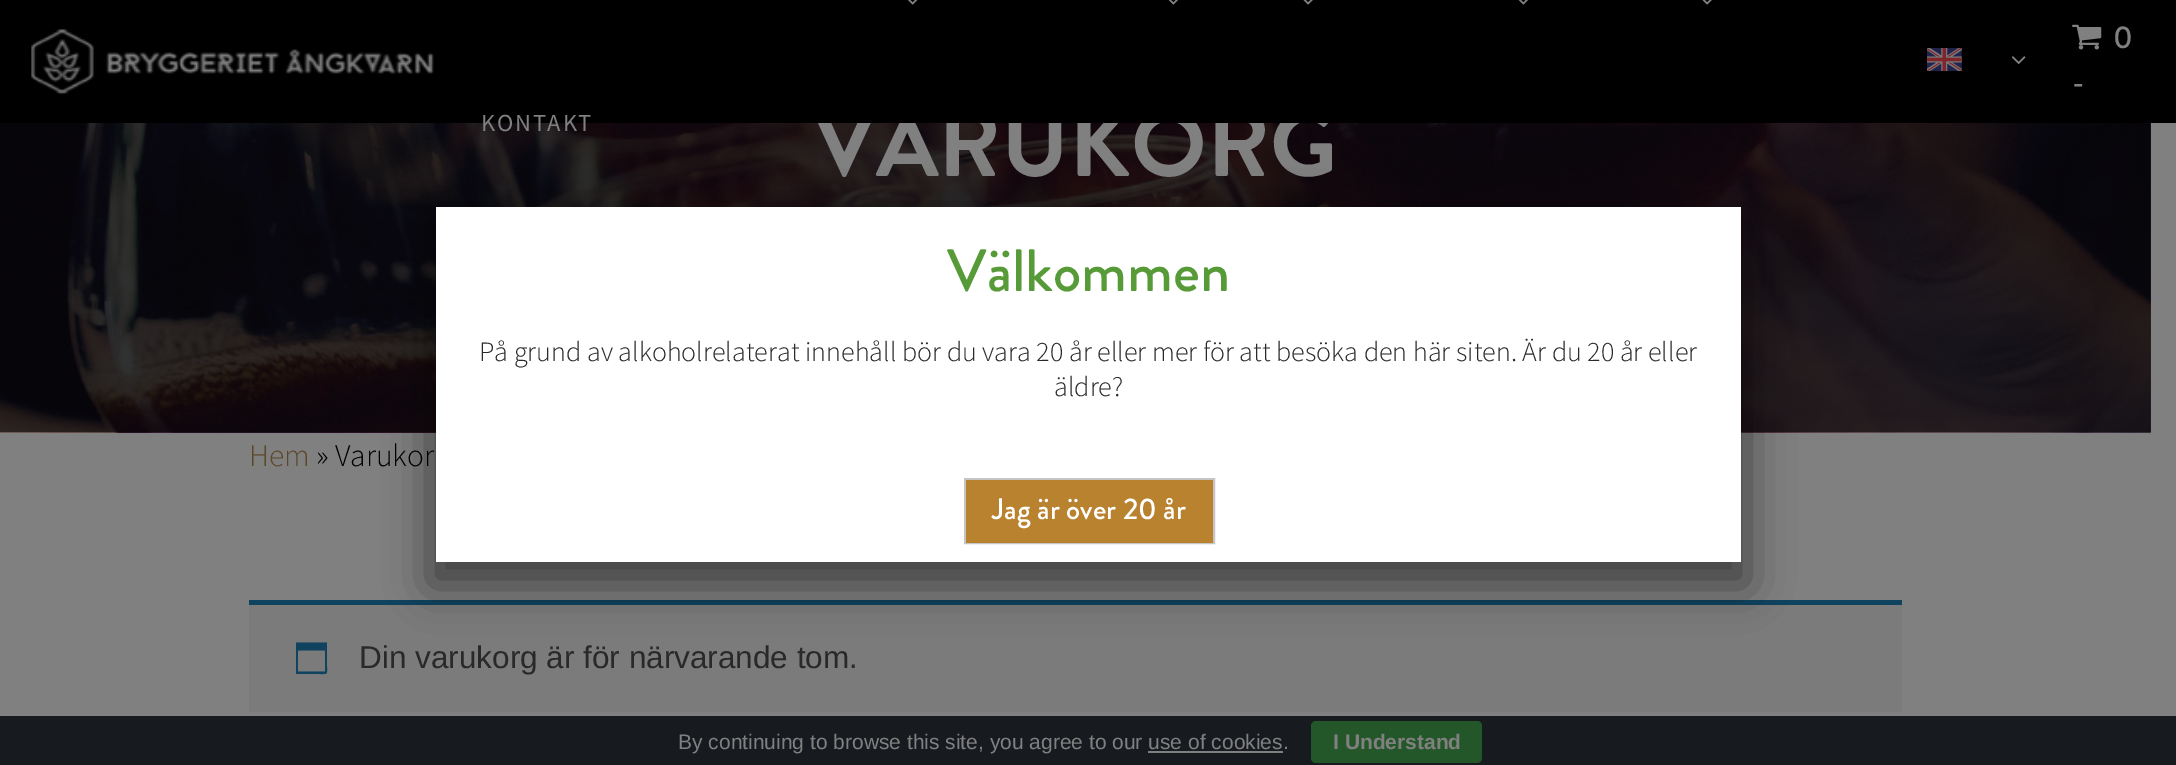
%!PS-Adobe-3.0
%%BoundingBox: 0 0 2176 765
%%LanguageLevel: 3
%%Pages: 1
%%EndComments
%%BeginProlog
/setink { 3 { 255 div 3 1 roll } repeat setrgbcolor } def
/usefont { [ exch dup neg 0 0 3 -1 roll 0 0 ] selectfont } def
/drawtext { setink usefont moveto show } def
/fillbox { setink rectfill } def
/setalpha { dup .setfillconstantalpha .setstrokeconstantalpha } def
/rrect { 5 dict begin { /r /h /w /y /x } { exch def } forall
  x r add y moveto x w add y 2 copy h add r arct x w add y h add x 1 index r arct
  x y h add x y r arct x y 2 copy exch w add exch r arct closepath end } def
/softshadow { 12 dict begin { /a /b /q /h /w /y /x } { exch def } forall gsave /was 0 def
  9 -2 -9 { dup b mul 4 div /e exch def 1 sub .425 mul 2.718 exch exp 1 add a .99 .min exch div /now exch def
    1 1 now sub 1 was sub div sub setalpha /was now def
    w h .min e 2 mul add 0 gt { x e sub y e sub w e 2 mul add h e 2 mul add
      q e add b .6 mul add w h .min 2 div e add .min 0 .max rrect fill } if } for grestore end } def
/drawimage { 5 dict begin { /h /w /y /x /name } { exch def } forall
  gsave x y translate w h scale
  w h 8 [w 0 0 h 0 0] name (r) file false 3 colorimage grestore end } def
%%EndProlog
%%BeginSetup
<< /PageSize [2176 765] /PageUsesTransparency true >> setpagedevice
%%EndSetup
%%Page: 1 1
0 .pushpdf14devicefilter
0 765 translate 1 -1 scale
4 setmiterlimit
0 0 2176 765 128 128 128 fillbox
(assets/img8.rgb) 0 123 2151 310 drawimage
(VARUKORG) 813 176 /BrandonGrotesque-Bold 94.5 128 128 128 drawtext
0 0 2176 123 0 0 0 fillbox
(assets/img1.rgb) 31 29 403 66 drawimage
(assets/img2.rgb) 1927 48 35 23 drawimage
(assets/img3.rgb) 2011 56 15 9 drawimage
(assets/img4.rgb) 2072 24 30 26 drawimage
(0) 2113 48 /BrandonGrotesque-Medium 31.5 128 128 128 drawtext
(-) 2072 93 /BrandonGrotesque-Medium 31.5 128 128 128 drawtext
(assets/img5.rgb) 908 0 10 5 drawimage
(assets/img6.rgb) 1168 0 10 5 drawimage
(assets/img7.rgb) 1303 0 10 5 drawimage
(assets/img6.rgb) 1518 0 10 5 drawimage
(assets/img7.rgb) 1702 0 10 5 drawimage
/SourceSansPro-Regular 24.5 usefont
481 131 moveto 1.75 0 (KONTAKT) ashow
(Hem) 249 466 /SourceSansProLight-Light 31.5 92 72 41 drawtext
(» Varukor) 316 466 /SourceSansProLight-Light 31.5 0 0 0 drawtext
249 605 1653 107 123 123 124 fillbox
249 600 1653 5 15 67 95 fillbox
325 650.5 moveto 298 650.5 lineto 298 671.5 lineto 325 671.5 lineto closepath 327 642.5 moveto 327 666.5 lineto 327 674.5 328 674 320 674 curveto 296 674 lineto 296 642.5 lineto closepath fill
(Din varukorg är för närvarande tom.) 359 668 /LiberationSans-Regular 31.5 41 41 41 drawtext
2 2 2 setink
429 217 1319 369 0 22 0.5 softshadow
436 207 1305 355 255 255 255 fillbox
(Välkommen) 947 291 /BrandonGrotesque-Medium 59.5 87 154 56 drawtext
(På grund av alkoholrelaterat innehåll bör du vara 20 år eller mer för att besöka den här siten. Är du 20 år eller) 479 361 /SourceSansProLight-Light 28 41 41 41 drawtext
(äldre?) 1054 396 /SourceSansProLight-Light 28 41 41 41 drawtext
197 197 197 setink
2 setlinewidth
965 479 249 64 rectstroke
966 480 247 63 184 130 47 fillbox
(Jag är över 20 år) 992 519 /BrandonGrotesque-Medium 29.75 255 255 255 drawtext
0 716 2176 49 23 27 32 fillbox
(By continuing to browse this site, you agree to our use of cookies.) 678 749 /LiberationSans-Regular 21 128 128 128 drawtext
35 87 41 setink
1311 721 171 42 5 rrect fill
(I Understand) 1333 749 /LiberationSans-Bold 21 128 128 128 drawtext
1148 751 135 2 128 128 128 fillbox
.poppdf14devicefilter showpage
%%EOF
